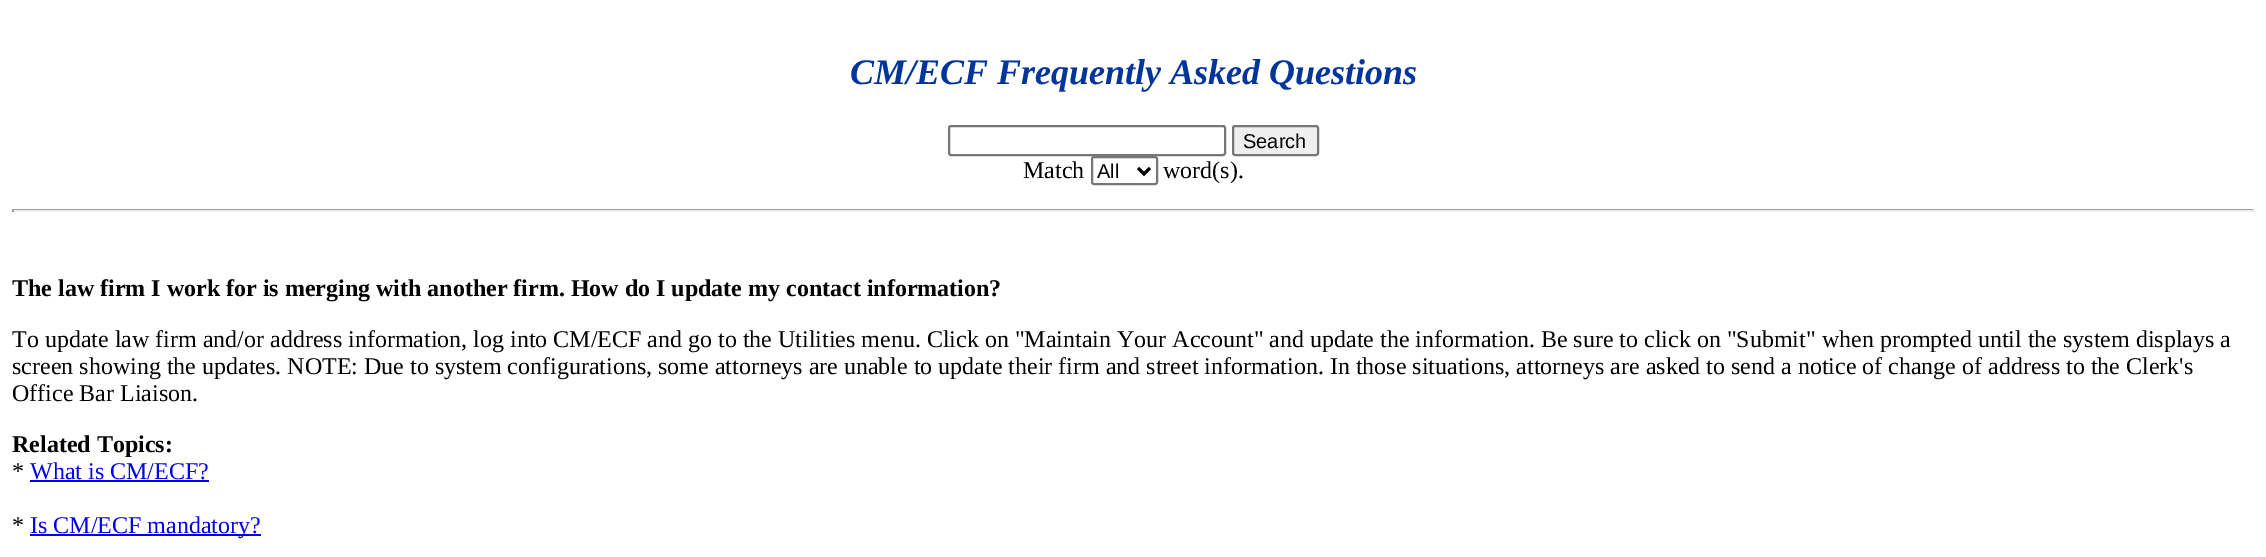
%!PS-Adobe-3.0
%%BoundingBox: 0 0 2266 557
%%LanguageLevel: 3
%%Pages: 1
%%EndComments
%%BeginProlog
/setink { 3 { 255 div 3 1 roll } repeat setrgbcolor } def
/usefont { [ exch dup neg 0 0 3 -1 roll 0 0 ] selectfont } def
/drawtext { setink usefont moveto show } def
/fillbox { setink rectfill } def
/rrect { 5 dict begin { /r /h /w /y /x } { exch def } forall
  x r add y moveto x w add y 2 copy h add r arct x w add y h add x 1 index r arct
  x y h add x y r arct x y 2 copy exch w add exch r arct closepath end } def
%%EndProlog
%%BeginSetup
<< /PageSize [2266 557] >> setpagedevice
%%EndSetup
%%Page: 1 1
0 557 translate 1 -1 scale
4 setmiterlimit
0 0 2266 557 255 255 255 fillbox
(CM/ECF Frequently Asked Questions) 850 84 /LiberationSerif-BoldItalic 36 1 53 155 drawtext
118 118 118 setink
2 setlinewidth
949 126 276 29 2 rrect stroke
239 239 239 setink
1233 126 85 29 2 rrect gsave fill grestore
118 118 118 setink
stroke
(Search) 1243 148 /LiberationSans-Regular 20 0 0 0 drawtext
(Match) 1023 178 /LiberationSerif-Regular 24 0 0 0 drawtext
118 118 118 setink
1092 157 65 27 2 rrect stroke
0 0 0 setink
3 setlinewidth
1138 168 moveto 1144 174 lineto 1150 168 lineto stroke
(All) 1097 178 /LiberationSans-Regular 20 0 0 0 drawtext
(word\(s\).) 1163 178 /LiberationSerif-Regular 24 0 0 0 drawtext
12 209 2243 1 159 159 159 fillbox
2253 209 2 3 238 238 238 fillbox
12 210 2243 2 238 238 238 fillbox
12 209 2 3 159 159 159 fillbox
(The law firm I work for is merging with another firm. How do I update my contact information?) 12 296 /LiberationSerif-Bold 24 0 0 0 drawtext
(To update law firm and/or address information, log into CM/ECF and go to the Utilities menu. Click on "Maintain Your Account" and update the information. Be sure to click on "Submit" when prompted until the system displays a) 12 347 /LiberationSerif-Regular 24 0 0 0 drawtext
(screen showing the updates. NOTE: Due to system configurations, some attorneys are unable to update their firm and street information. In those situations, attorneys are asked to send a notice of change of address to the Clerk's) 12 374 /LiberationSerif-Regular 24 0 0 0 drawtext
(Office Bar Liaison.) 12 401 /LiberationSerif-Regular 24 0 0 0 drawtext
(Related Topics:) 12 452 /LiberationSerif-Bold 24 0 0 0 drawtext
(*) 12 479 /LiberationSerif-Regular 24 0 0 0 drawtext
(What is CM/ECF?) 30 479 /LiberationSerif-Regular 24 0 0 238 drawtext
30 480 179 2 0 0 238 fillbox
(*) 12 533 /LiberationSerif-Regular 24 0 0 0 drawtext
30 534 231 2 0 0 238 fillbox
(Is CM/ECF mandatory?) 30 533 /LiberationSerif-Regular 24 0 0 238 drawtext
showpage
%%EOF
